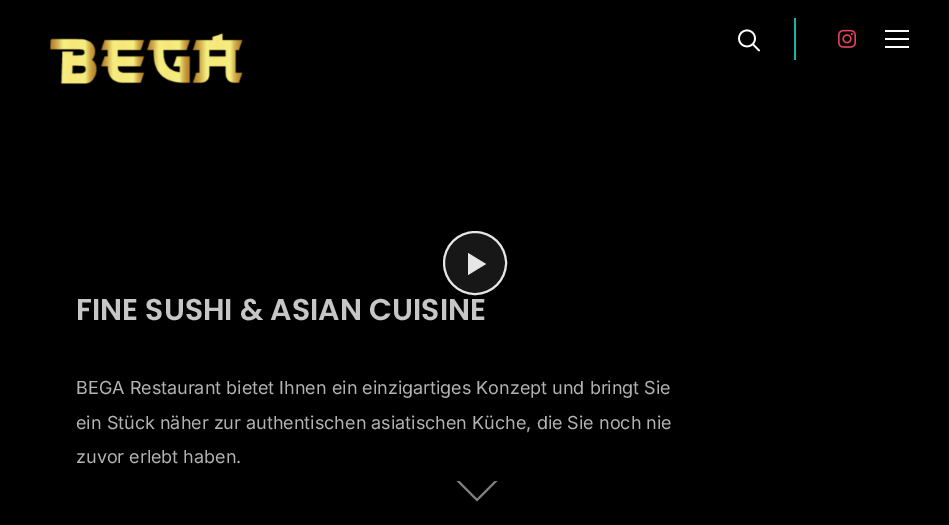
%!PS-Adobe-3.0
%%BoundingBox: 0 0 949 525
%%LanguageLevel: 3
%%Pages: 1
%%EndComments
%%BeginProlog
/setink { 3 { 255 div 3 1 roll } repeat setrgbcolor } def
/usefont { [ exch dup neg 0 0 3 -1 roll 0 0 ] selectfont } def
/drawtext { setink usefont moveto show } def
/fillbox { setink rectfill } def
/disc { newpath 0 360 arc closepath } def
/drawimage { 5 dict begin { /h /w /y /x /name } { exch def } forall
  gsave x y translate w h scale
  w h 8 [w 0 0 h 0 0] name (r) file false 3 colorimage grestore end } def
%%EndProlog
%%BeginSetup
<< /PageSize [949 525] >> setpagedevice
%%EndSetup
%%Page: 1 1
0 525 translate 1 -1 scale
4 setmiterlimit
0 0 949 525 0 0 0 fillbox
(assets/img1.rgb) 50 33 193 52 drawimage
(assets/img2.rgb) 738 29 22 23 drawimage
794 18 2 42 24 180 170 fillbox
(assets/img3.rgb) 838 29 18 19 drawimage
885 30 24 2 255 255 255 fillbox
885 38 24 2 255 255 255 fillbox
885 46 24 2 255 255 255 fillbox
23 23 23 setink
475 263 31 disc gsave fill grestore
230 230 230 setink
2 setlinewidth
stroke
468 253 moveto 486 264 lineto 468 275 lineto closepath fill
(FINE SUSHI & ASIAN CUISINE) 76 320 /Poppins-SemiBold 30 198 198 198 drawtext
(BEGA Restaurant bietet Ihnen ein einzigartiges Konzept und bringt Sie) 76 394 /Inter-Regular 18 179 179 179 drawtext
(ein Stück näher zur authentischen asiatischen Küche, die Sie noch nie) 76 429 /Inter-Regular 18 179 179 179 drawtext
(zuvor erlebt haben.) 76 463 /Inter-Regular 18 179 179 179 drawtext
gsave
447 481 69 24 rectclip
128 128 128 setink
477 460 moveto 497 480 lineto 477 500 lineto 457 480 lineto closepath stroke
grestore
showpage
%%EOF
